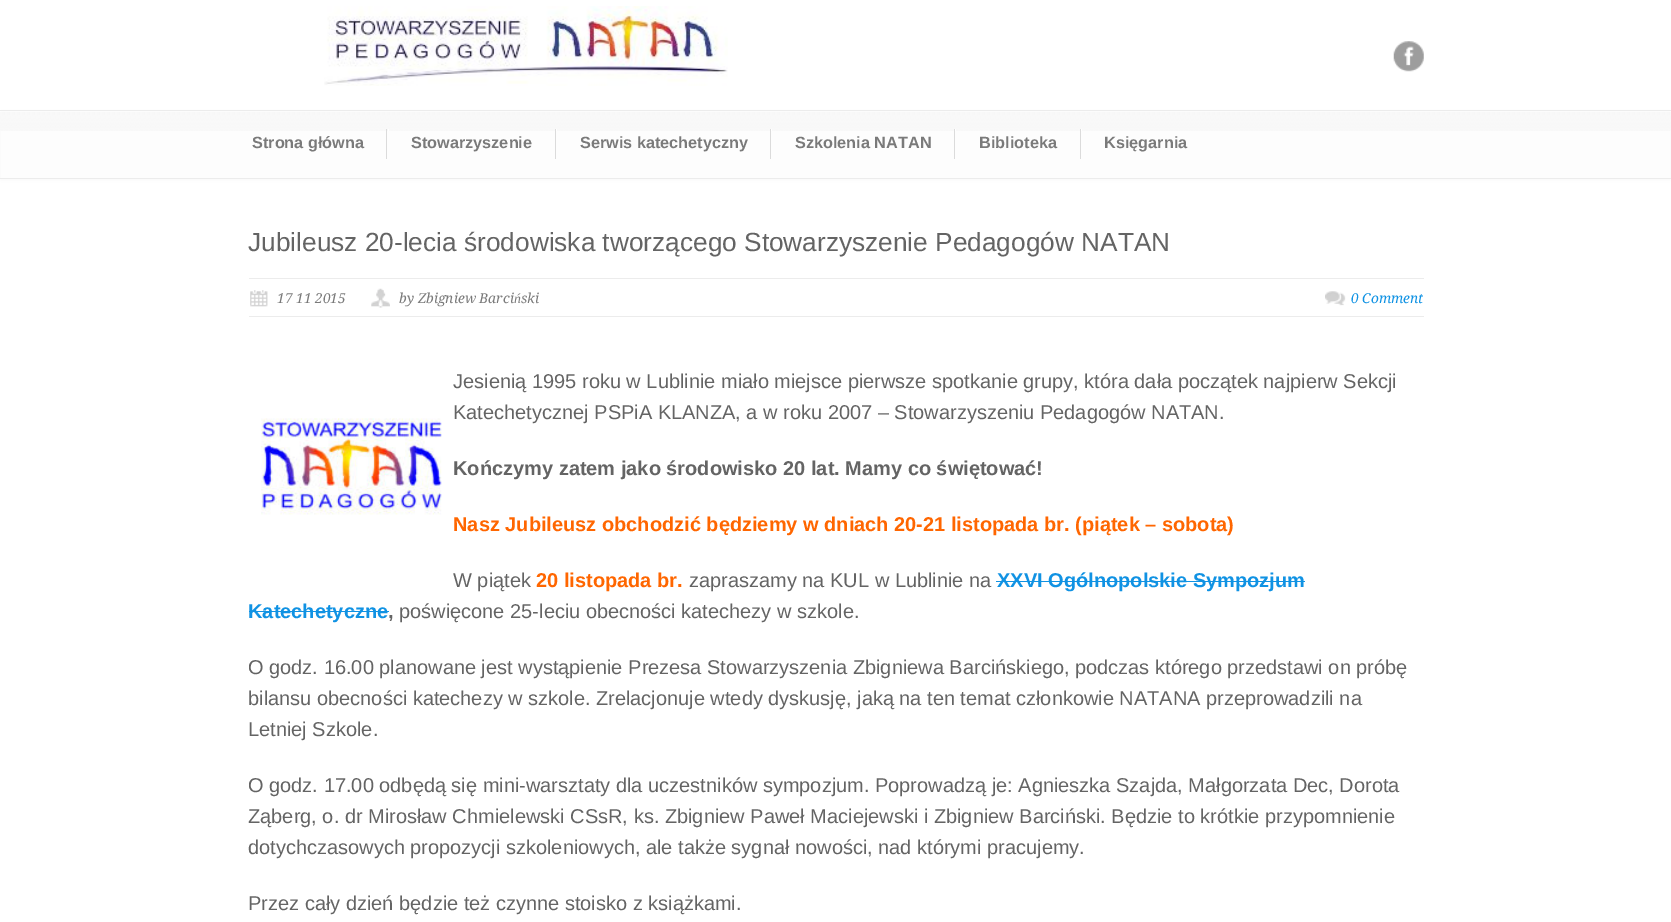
%!PS-Adobe-3.0
%%BoundingBox: 0 0 1671 922
%%LanguageLevel: 3
%%Pages: 1
%%EndComments
%%BeginProlog
/setink { 3 { 255 div 3 1 roll } repeat setrgbcolor } def
/usefont { [ exch dup neg 0 0 3 -1 roll 0 0 ] selectfont } def
/drawtext { setink usefont moveto show } def
/fillbox { setink rectfill } def
/setalpha { dup .setfillconstantalpha .setstrokeconstantalpha } def
/rrect { 5 dict begin { /r /h /w /y /x } { exch def } forall
  x r add y moveto x w add y 2 copy h add r arct x w add y h add x 1 index r arct
  x y h add x y r arct x y 2 copy exch w add exch r arct closepath end } def
/softshadow { 12 dict begin { /a /b /q /h /w /y /x } { exch def } forall gsave /was 0 def
  9 -2 -9 { dup b mul 4 div /e exch def 1 sub .425 mul 2.718 exch exp 1 add a .99 .min exch div /now exch def
    1 1 now sub 1 was sub div sub setalpha /was now def
    w h .min e 2 mul add 0 gt { x e sub y e sub w e 2 mul add h e 2 mul add
      q e add b .6 mul add w h .min 2 div e add .min 0 .max rrect fill } if } for grestore end } def
/drawimage { 5 dict begin { /h /w /y /x /name } { exch def } forall
  gsave x y translate w h scale
  w h 8 [w 0 0 h 0 0] name (r) file false 3 colorimage grestore end } def
%%EndProlog
%%BeginSetup
<< /PageSize [1671 922] /PageUsesTransparency true >> setpagedevice
%%EndSetup
%%Page: 1 1
0 .pushpdf14devicefilter
0 922 translate 1 -1 scale
4 setmiterlimit
0 0 1671 922 255 255 255 fillbox
(assets/img1.rgb) 324 6 404 80 drawimage
(assets/img2.rgb) 1393 41 31 31 drawimage
245 245 245 setink
1 113 1669 66 0 3 1 softshadow
1 113 1669 65 253 253 253 fillbox
(assets/img3.rgb) 0 112 1671 19 drawimage
0 110 1671 1 236 236 236 fillbox
0 178 1671 1 236 236 236 fillbox
386 129 1 30 219 219 219 fillbox
(Strona główna) 252 148 /LiberationSans-Bold 16.25 122 122 122 drawtext
555 129 1 30 219 219 219 fillbox
388 129 1 2 255 255 255 fillbox
(Stowarzyszenie) 411 148 /LiberationSans-Bold 16.25 122 122 122 drawtext
770 129 1 30 219 219 219 fillbox
556 129 1 2 255 255 255 fillbox
(Serwis katechetyczny) 580 148 /LiberationSans-Bold 16.25 122 122 122 drawtext
954 129 1 30 219 219 219 fillbox
771 129 1 2 255 255 255 fillbox
(Szkolenia NATAN) 795 148 /LiberationSans-Bold 16.25 122 122 122 drawtext
1080 129 1 30 219 219 219 fillbox
955 129 1 2 255 255 255 fillbox
(Biblioteka) 979 148 /LiberationSans-Bold 16.25 122 122 122 drawtext
1081 129 1 2 255 255 255 fillbox
(Księgarnia) 1104 148 /LiberationSans-Bold 16.25 122 122 122 drawtext
(Jubileusz 20-lecia środowiska tworzącego Stowarzyszenie Pedagogów NATAN) 248 251 /LiberationSans-Regular 26.25 100 100 100 drawtext
249 278 1175 1 236 236 236 fillbox
249 316 1175 1 236 236 236 fillbox
(assets/img4.rgb) 250 290 18 17 drawimage
(17 11 2015) 277 303 /DroidSerif-Italic 13.75 122 122 122 drawtext
(assets/img5.rgb) 371 288 19 20 drawimage
(by Zbigniew Barci) 399 303 /DroidSerif-Italic 13.75 122 122 122 drawtext
(ń) 514 303 /LiberationSerif-Italic 13.75 122 122 122 drawtext
(ski) 521 303 /DroidSerif-Italic 13.75 122 122 122 drawtext
(assets/img6.rgb) 1325 291 21 15 drawimage
(0 Comment) 1351 303 /DroidSerif-Italic 13.75 16 146 227 drawtext
(Jesienią 1995 roku w Lublinie miało miejsce pierwsze spotkanie grupy, która dała początek najpierw Sekcji) 453 388 /LiberationSans-Regular 20 100 100 100 drawtext
(Katechetycznej PSPiA KLANZA, a w roku 2007 – Stowarzyszeniu Pedagogów NATAN.) 453 419 /LiberationSans-Regular 20 100 100 100 drawtext
(assets/img7.rgb) 261 418 181 97 drawimage
(Kończymy zatem jako środowisko 20 lat. Mamy co świętować!) 453 475 /LiberationSans-Bold 20 100 100 100 drawtext
(Nasz Jubileusz obchodzić będziemy w dniach 20-21 listopada br. \(piątek – sobota\)) 453 531 /LiberationSans-Bold 20 255 102 0 drawtext
(W piątek) 453 587 /LiberationSans-Regular 20 100 100 100 drawtext
(20 listopada br.) 536 587 /LiberationSans-Bold 20 255 102 0 drawtext
(zapraszamy na KUL w Lublinie na) 689 587 /LiberationSans-Regular 20 100 100 100 drawtext
(XXVI Ogólnopolskie Sympozjum) 997 587 /LiberationSans-Bold 20 16 146 227 drawtext
996 581 309 1 16 146 227 fillbox
(Katechetyczne) 248 618 /LiberationSans-Bold 20 16 146 227 drawtext
249 611 140 1 16 146 227 fillbox
(,) 388 618 /LiberationSans-Bold 20 100 100 100 drawtext
(poświęcone 25-leciu obecności katechezy w szkole.) 399 618 /LiberationSans-Regular 20 100 100 100 drawtext
(O godz. 16.00 planowane jest wystąpienie Prezesa Stowarzyszenia Zbigniewa Barcińskiego, podczas którego przedstawi on próbę) 248 674 /LiberationSans-Regular 20 100 100 100 drawtext
(bilansu obecności katechezy w szkole. Zrelacjonuje wtedy dyskusję, jaką na ten temat członkowie NATANA przeprowadzili na) 248 705 /LiberationSans-Regular 20 100 100 100 drawtext
(Letniej Szkole.) 248 736 /LiberationSans-Regular 20 100 100 100 drawtext
(O godz. 17.00 odbędą się mini-warsztaty dla uczestników sympozjum. Poprowadzą je: Agnieszka Szajda, Małgorzata Dec, Dorota) 248 792 /LiberationSans-Regular 20 100 100 100 drawtext
(Ząberg, o. dr Mirosław Chmielewski CSsR, ks. Zbigniew Paweł Maciejewski i Zbigniew Barciński. Będzie to krótkie przypomnienie) 248 823 /LiberationSans-Regular 20 100 100 100 drawtext
(dotychczasowych propozycji szkoleniowych, ale także sygnał nowości, nad którymi pracujemy.) 248 854 /LiberationSans-Regular 20 100 100 100 drawtext
(Przez cały dzień będzie też czynne stoisko z książkami.) 248 910 /LiberationSans-Regular 20 100 100 100 drawtext
.poppdf14devicefilter showpage
%%EOF
